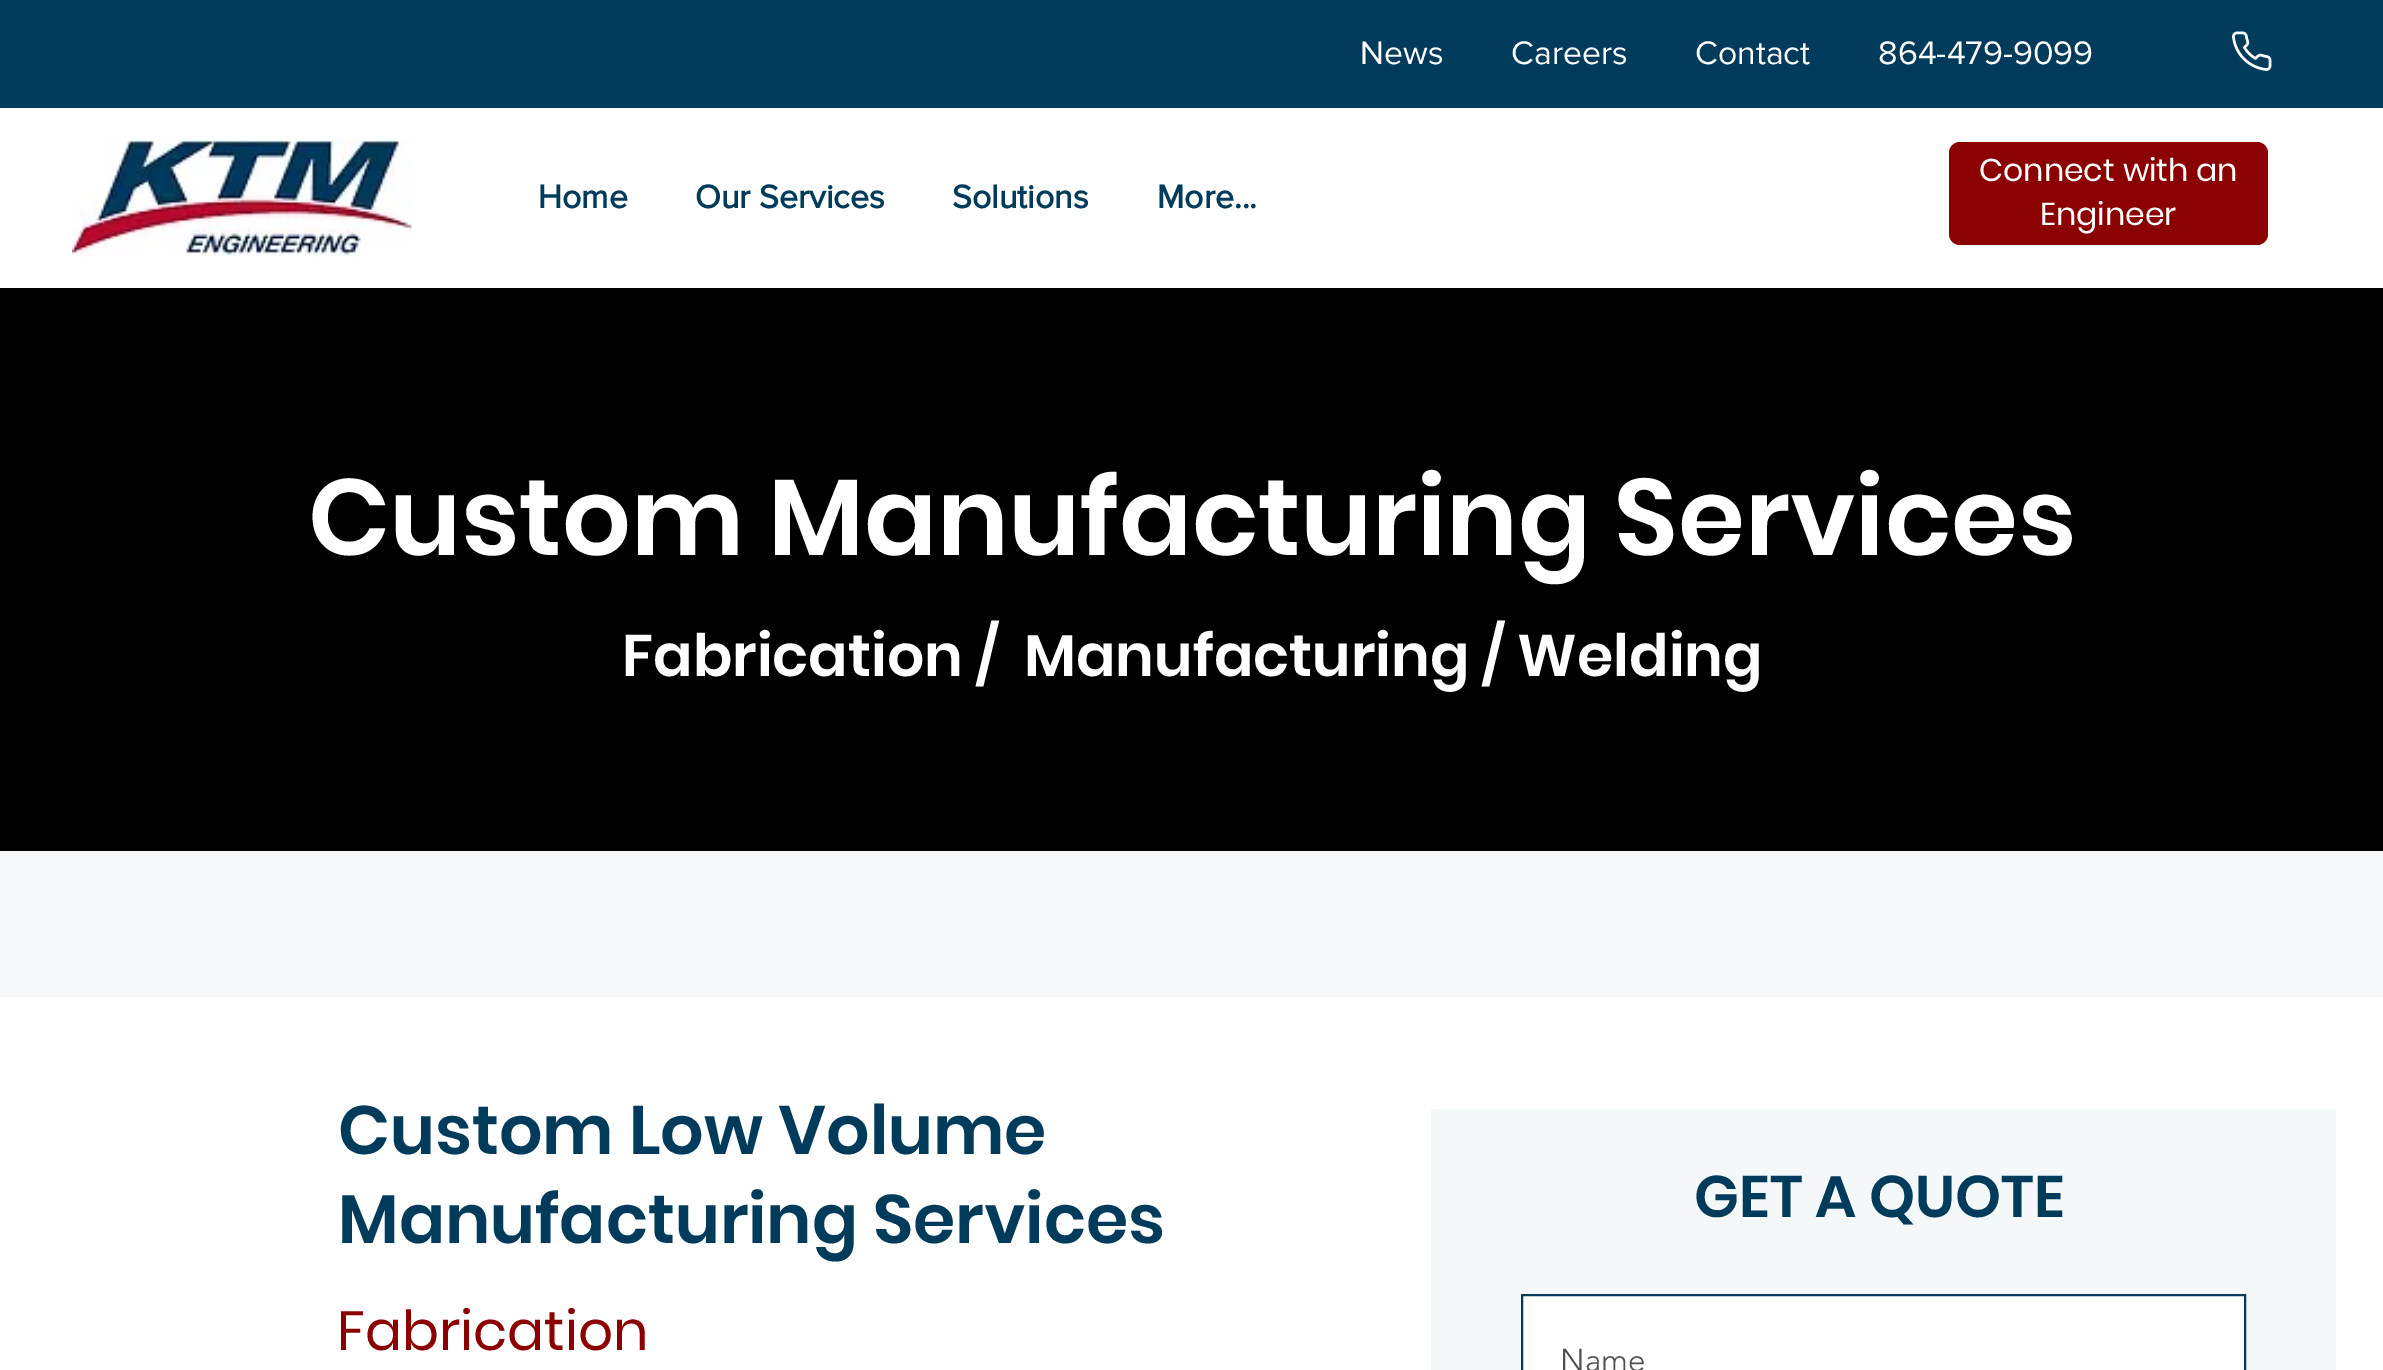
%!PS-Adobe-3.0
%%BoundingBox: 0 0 2383 1370
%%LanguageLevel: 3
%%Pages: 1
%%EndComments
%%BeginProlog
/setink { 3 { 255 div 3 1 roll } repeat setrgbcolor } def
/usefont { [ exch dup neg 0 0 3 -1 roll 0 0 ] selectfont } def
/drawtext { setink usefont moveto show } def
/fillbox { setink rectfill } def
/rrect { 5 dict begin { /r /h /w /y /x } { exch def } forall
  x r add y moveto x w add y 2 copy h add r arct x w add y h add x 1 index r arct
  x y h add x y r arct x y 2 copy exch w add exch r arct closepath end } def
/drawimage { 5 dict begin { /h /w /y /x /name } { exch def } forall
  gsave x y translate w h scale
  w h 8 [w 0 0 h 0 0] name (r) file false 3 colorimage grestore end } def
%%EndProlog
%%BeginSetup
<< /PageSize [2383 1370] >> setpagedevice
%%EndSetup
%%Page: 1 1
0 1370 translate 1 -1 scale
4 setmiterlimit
0 0 2383 1370 255 255 255 fillbox
0 0 2383 108 0 59 92 fillbox
(News) 1360 64 /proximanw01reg-Regular 33.75 255 255 255 drawtext
(Careers) 1511 64 /proximanw01reg-Regular 33.75 255 255 255 drawtext
(Contact) 1695 64 /proximanw01reg-Regular 33.75 255 255 255 drawtext
(864-479-9099) 1878 64 /proximanw01reg-Regular 33.75 255 255 255 drawtext
(assets/img1.rgb) 2232 31 40 40 drawimage
(assets/img2.rgb) 72 139 340 118 drawimage
(Home) 538 208 /proximanw01reg-Bold 33.75 0 59 92 drawtext
(Our Services) 695 208 /proximanw01reg-Bold 33.75 0 59 92 drawtext
(Solutions) 952 208 /proximanw01reg-Bold 33.75 0 59 92 drawtext
(More...) 1157 208 /proximanw01reg-Bold 33.75 0 59 92 drawtext
139 0 0 setink
1949 142 319 103 11 rrect fill
(Connect with an) 1979 181 /Poppins-Regular 31.5 255 255 255 drawtext
(Engineer) 2040 225 /Poppins-Regular 31.5 255 255 255 drawtext
0 288 2383 563 0 0 0 fillbox
(Custom Manufacturing Services) 308 555 /Poppins-SemiBold 108 255 255 255 drawtext
(Fabrication /  Manufacturing / Welding) 622 676 /Poppins-SemiBold 58.5 255 255 255 drawtext
0 851 2383 146 246 248 249 fillbox
(Custom Low Volume) 338 1154 /Poppins-SemiBold 68.25 0 59 92 drawtext
(Manufacturing Services) 338 1243 /Poppins-SemiBold 68.25 0 59 92 drawtext
(Fabrication) 337 1350 /Poppins-Regular 55 139 0 0 drawtext
1431 1109 905 261 245 248 249 fillbox
(GET A QUOTE) 1694 1217 /Poppins-SemiBold 58.5 0 59 92 drawtext
255 255 255 setink
1522 1295 moveto 2245 1295 lineto 2245 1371 lineto 1522 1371 lineto closepath gsave fill grestore
0 59 92 setink
2 setlinewidth
stroke
(Name) 1560 1371 /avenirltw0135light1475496-Light 31.5 79 79 79 drawtext
showpage
%%EOF
